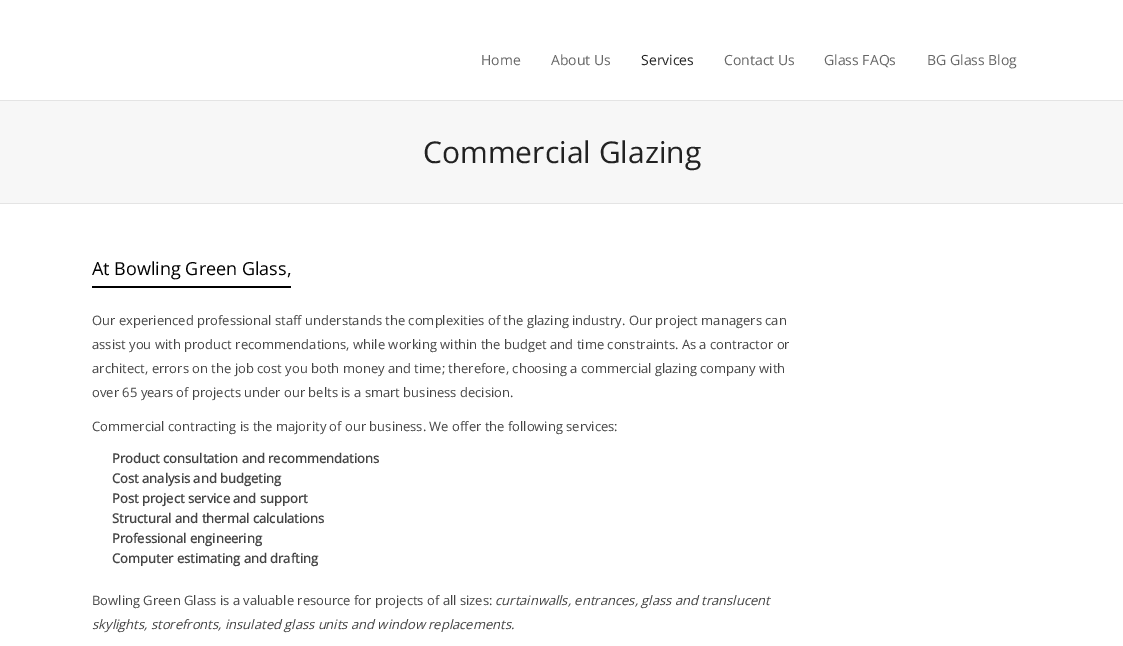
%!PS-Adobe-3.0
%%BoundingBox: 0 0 1123 646
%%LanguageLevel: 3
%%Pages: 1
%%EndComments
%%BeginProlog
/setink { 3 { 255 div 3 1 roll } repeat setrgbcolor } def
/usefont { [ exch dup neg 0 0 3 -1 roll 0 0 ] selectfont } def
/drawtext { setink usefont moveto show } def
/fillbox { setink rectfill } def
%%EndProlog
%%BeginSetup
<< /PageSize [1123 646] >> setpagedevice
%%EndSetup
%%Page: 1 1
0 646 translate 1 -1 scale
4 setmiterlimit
0 0 1123 646 255 255 255 fillbox
0 100 1123 1 228 228 228 fillbox
(Home) 481 65 /OpenSans-Regular 14 102 102 102 drawtext
(About Us) 551 65 /OpenSans-Regular 14 102 102 102 drawtext
(Services) 641 65 /OpenSans-Regular 14 34 34 34 drawtext
(Contact Us) 724 65 /OpenSans-Regular 14 102 102 102 drawtext
(Glass FAQs) 824 65 /OpenSans-Regular 14 102 102 102 drawtext
(BG Glass Blog) 927 65 /OpenSans-Regular 14 102 102 102 drawtext
0 101 1123 102 247 247 247 fillbox
0 203 1123 1 228 228 228 fillbox
(Commercial Glazing) 423 163 /OpenSans-Regular 30 34 34 34 drawtext
92 286 199 2 0 0 0 fillbox
(At Bowling Green Glass,) 92 275 /OpenSans-Regular 18 0 0 0 drawtext
(Our experienced professional staff understands the complexities of the glazing industry. Our project managers can) 92 325 /OpenSans-Regular 13 68 68 68 drawtext
(assist you with product recommendations, while working within the budget and time constraints. As a contractor or) 92 349 /OpenSans-Regular 13 68 68 68 drawtext
(architect, errors on the job cost you both money and time; therefore, choosing a commercial glazing company with) 92 373 /OpenSans-Regular 13 68 68 68 drawtext
(over 65 years of projects under our belts is a smart business decision.) 92 397 /OpenSans-Regular 13 68 68 68 drawtext
(Commercial contracting is the majority of our business. We offer the following services:) 92 431 /OpenSans-Regular 13 68 68 68 drawtext
(Product consultation and recommendations) 112 463 /OpenSans-Bold 13 68 68 68 drawtext
(Cost analysis and budgeting) 112 483 /OpenSans-Bold 13 68 68 68 drawtext
(Post project service and support) 112 503 /OpenSans-Bold 13 68 68 68 drawtext
(Structural and thermal calculations) 112 523 /OpenSans-Bold 13 68 68 68 drawtext
(Professional engineering) 112 543 /OpenSans-Bold 13 68 68 68 drawtext
(Computer estimating and drafting) 112 563 /OpenSans-Bold 13 68 68 68 drawtext
(Bowling Green Glass is a valuable resource for projects of all sizes:) 92 605 /OpenSans-Regular 13 68 68 68 drawtext
(curtainwalls, entrances, glass and translucent) 495 605 /OpenSans-Italic 13 68 68 68 drawtext
(skylights, storefronts, insulated glass units and window replacements.) 92 629 /OpenSans-Italic 13 68 68 68 drawtext
showpage
%%EOF
